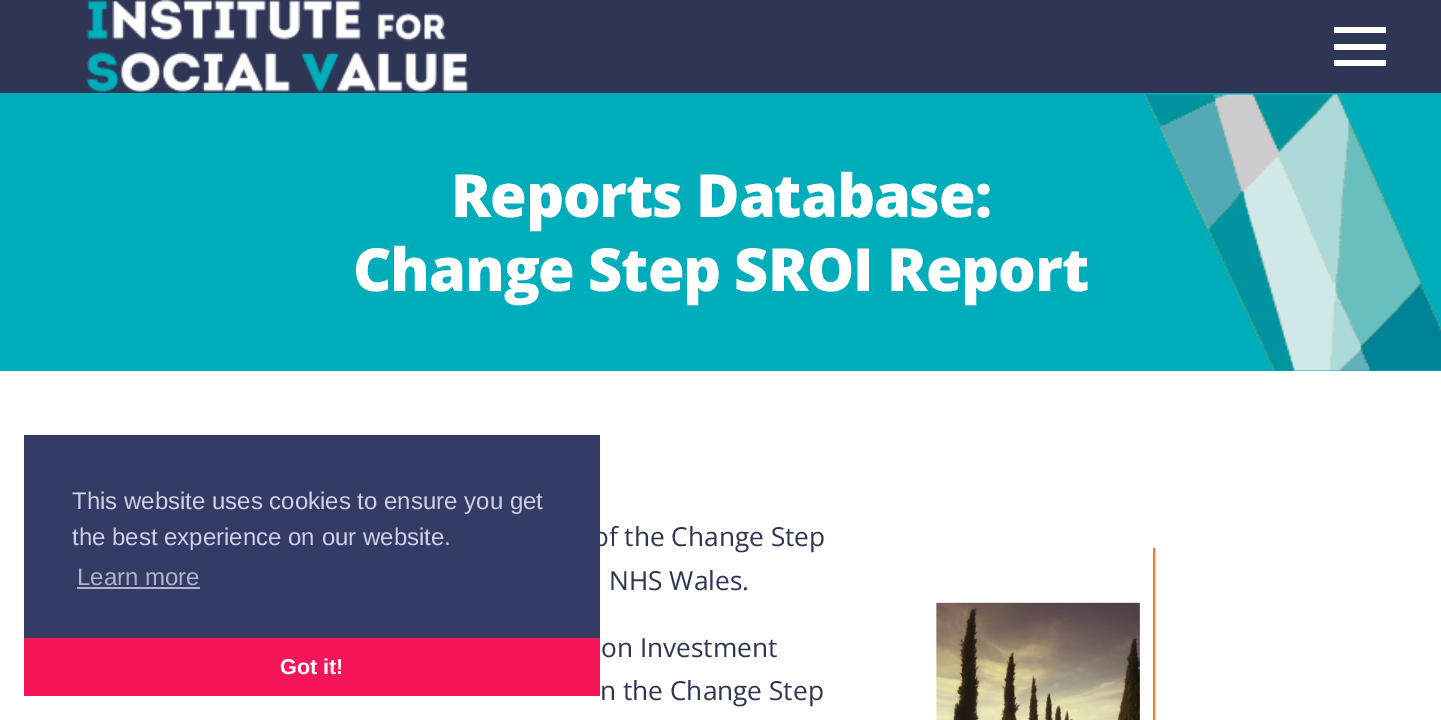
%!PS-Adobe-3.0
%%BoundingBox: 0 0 1441 720
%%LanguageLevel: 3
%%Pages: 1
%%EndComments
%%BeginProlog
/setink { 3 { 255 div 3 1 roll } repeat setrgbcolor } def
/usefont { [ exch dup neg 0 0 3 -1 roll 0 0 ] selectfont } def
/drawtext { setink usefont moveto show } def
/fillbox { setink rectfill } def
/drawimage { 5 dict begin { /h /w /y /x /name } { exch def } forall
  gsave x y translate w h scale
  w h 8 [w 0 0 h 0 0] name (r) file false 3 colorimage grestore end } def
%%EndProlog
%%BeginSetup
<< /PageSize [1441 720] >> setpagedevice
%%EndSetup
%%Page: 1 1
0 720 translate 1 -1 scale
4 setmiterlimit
0 0 1441 720 255 255 255 fillbox
0 0 1441 93 46 53 85 fillbox
0 93 1441 278 0 173 186 fillbox
(assets/img1.rgb) 86 0 383 93 drawimage
1334 44 52 6 255 255 255 fillbox
1334 27 52 6 255 255 255 fillbox
1334 60 52 6 255 255 255 fillbox
(of the Change Step) 593 546 /OpenSans-Regular 26.25 46 53 85 drawtext
24 435 576 203 52 60 102 fillbox
(This website uses cookies to ensure you get) 72 509 /LiberationSans-Regular 24 207 207 232 drawtext
(the best experience on our website.) 72 545 /LiberationSans-Regular 24 207 207 232 drawtext
(Learn more) 77 585 /LiberationSans-Regular 24 176 178 206 drawtext
77 587 123 2 176 178 206 fillbox
24 638 576 58 247 21 89 fillbox
(Got it!) 280 674 /LiberationSans-Bold 21.5 255 255 255 drawtext
(assets/img2.rgb) 1143 94 298 277 drawimage
/OpenSans-ExtraBold 59.5 usefont
451 217 moveto -1.2 0 (Reports Database:) ashow
353 291 moveto -1.2 0 (Change Step SROI Report) ashow
(NHS Wales.) 609 590 /OpenSans-Regular 26.25 46 53 85 drawtext
(assets/img3.rgb) 936 547 220 173 drawimage
(on Investment) 601 657 /OpenSans-Regular 26.25 46 53 85 drawtext
(n the Change Step) 600 700 /OpenSans-Regular 26.25 46 53 85 drawtext
showpage
%%EOF
